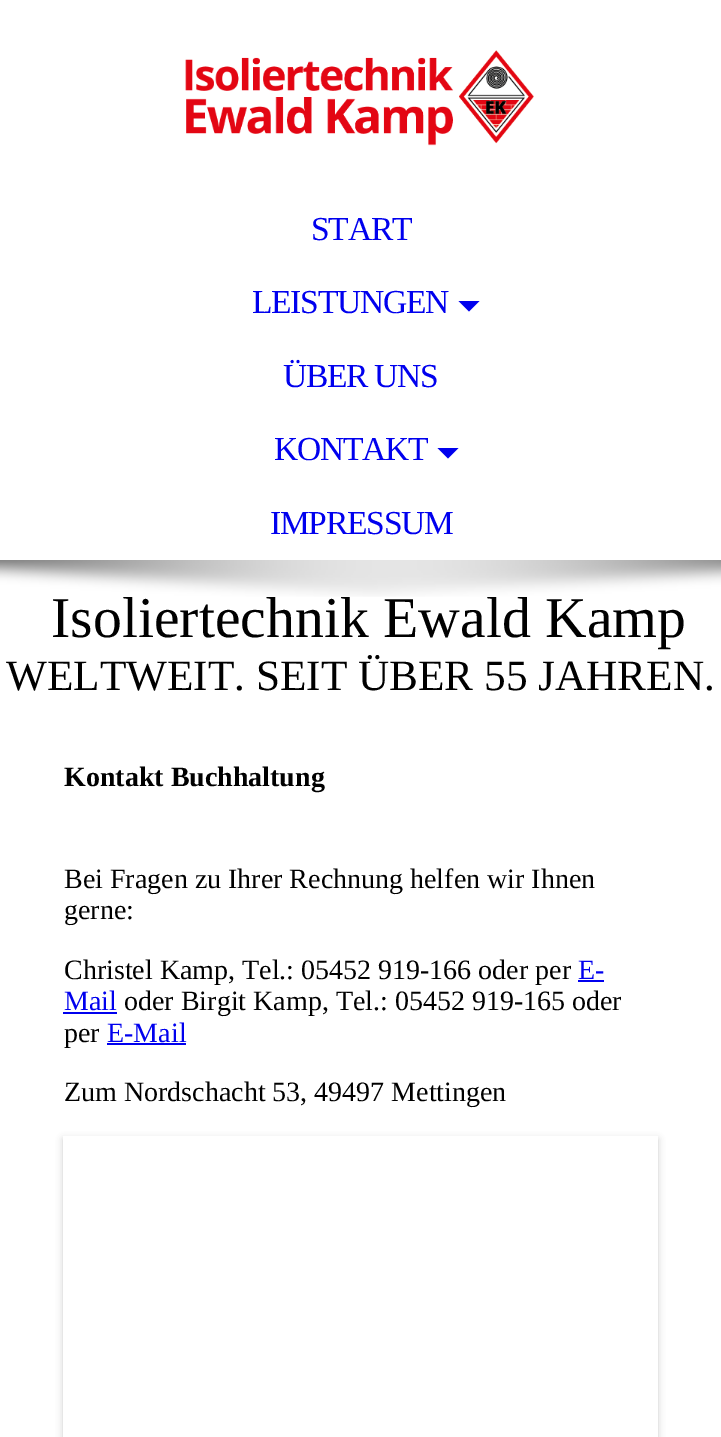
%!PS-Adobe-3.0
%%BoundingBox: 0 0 721 1437
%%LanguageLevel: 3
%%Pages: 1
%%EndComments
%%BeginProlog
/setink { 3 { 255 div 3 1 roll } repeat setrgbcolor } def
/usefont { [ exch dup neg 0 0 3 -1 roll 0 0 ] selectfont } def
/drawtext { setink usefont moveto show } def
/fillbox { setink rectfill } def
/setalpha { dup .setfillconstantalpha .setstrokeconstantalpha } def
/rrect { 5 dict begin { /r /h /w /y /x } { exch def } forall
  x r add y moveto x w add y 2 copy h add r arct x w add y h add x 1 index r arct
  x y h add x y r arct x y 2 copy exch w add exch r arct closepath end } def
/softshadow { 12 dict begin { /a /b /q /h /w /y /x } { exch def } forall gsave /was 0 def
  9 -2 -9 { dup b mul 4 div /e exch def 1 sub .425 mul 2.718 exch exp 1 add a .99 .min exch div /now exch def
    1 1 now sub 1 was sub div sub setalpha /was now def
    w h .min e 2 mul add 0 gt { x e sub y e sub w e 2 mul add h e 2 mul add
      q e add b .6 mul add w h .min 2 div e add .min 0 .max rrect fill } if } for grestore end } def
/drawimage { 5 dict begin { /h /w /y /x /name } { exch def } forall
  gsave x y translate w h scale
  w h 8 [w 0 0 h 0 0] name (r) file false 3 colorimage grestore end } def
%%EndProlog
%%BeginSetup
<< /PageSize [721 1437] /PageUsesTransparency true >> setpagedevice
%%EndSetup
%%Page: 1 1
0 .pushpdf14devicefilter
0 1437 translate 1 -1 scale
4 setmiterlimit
0 0 721 1437 255 255 255 fillbox
(assets/img1.rgb) 185 50 349 96 drawimage
/LiberationSerif-Regular 33.5 usefont
0 0 238 setink
311 240 moveto -1.25 0 (START) ashow
252 313 moveto -1.25 0 (LEISTUNGEN) ashow
458.5 301 moveto 479.5 301 lineto 469 311.5 lineto closepath fill
283 387 moveto -1.25 0 (ÜBER UNS) ashow
274 460 moveto -1.25 0 (KONTAKT) ashow
437.5 448 moveto 458.5 448 lineto 448 458.5 lineto closepath fill
270 534 moveto -1.25 0 (IMPRESSUM) ashow
(assets/img2.rgb) 0 560 721 37 drawimage
(Isoliertechnik Ewald Kamp) 51 637 /LiberationSerif-Regular 57.75 0 0 0 drawtext
(WELTWEIT. SEIT ÜBER 55 JAHREN.) 6 690 /LiberationSerif-Regular 43.25 0 0 0 drawtext
(Kontakt Buchhaltung) 64 786 /LiberationSerif-Bold 28 0 0 0 drawtext
(Bei Fragen zu Ihrer Rechnung helfen wir Ihnen) 64 888 /LiberationSerif-Regular 28 0 0 0 drawtext
(gerne:) 64 919 /LiberationSerif-Regular 28 0 0 0 drawtext
(Christel Kamp, Tel.: 05452 919-166 oder per) 64 979 /LiberationSerif-Regular 28 0 0 0 drawtext
(E-) 578 979 /LiberationSerif-Regular 28 0 0 238 drawtext
578 980 26 2 0 0 238 fillbox
(Mail) 64 1010 /LiberationSerif-Regular 28 0 0 238 drawtext
63 1012 54 2 0 0 238 fillbox
(oder Birgit Kamp, Tel.: 05452 919-165 oder) 124 1010 /LiberationSerif-Regular 28 0 0 0 drawtext
(per) 64 1042 /LiberationSerif-Regular 28 0 0 0 drawtext
(E-Mail) 107 1042 /LiberationSerif-Regular 28 0 0 238 drawtext
107 1043 79 2 0 0 238 fillbox
(Zum Nordschacht 53, 49497 Mettingen) 64 1101 /LiberationSerif-Regular 28 0 0 0 drawtext
gsave
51 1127 moveto 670 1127 lineto 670 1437 lineto 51 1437 lineto closepath 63 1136 moveto 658 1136 lineto 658 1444 lineto 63 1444 lineto closepath eoclip newpath
204 204 204 setink
63 1139 595 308 0 3.5 1 softshadow
grestore
.poppdf14devicefilter showpage
%%EOF
